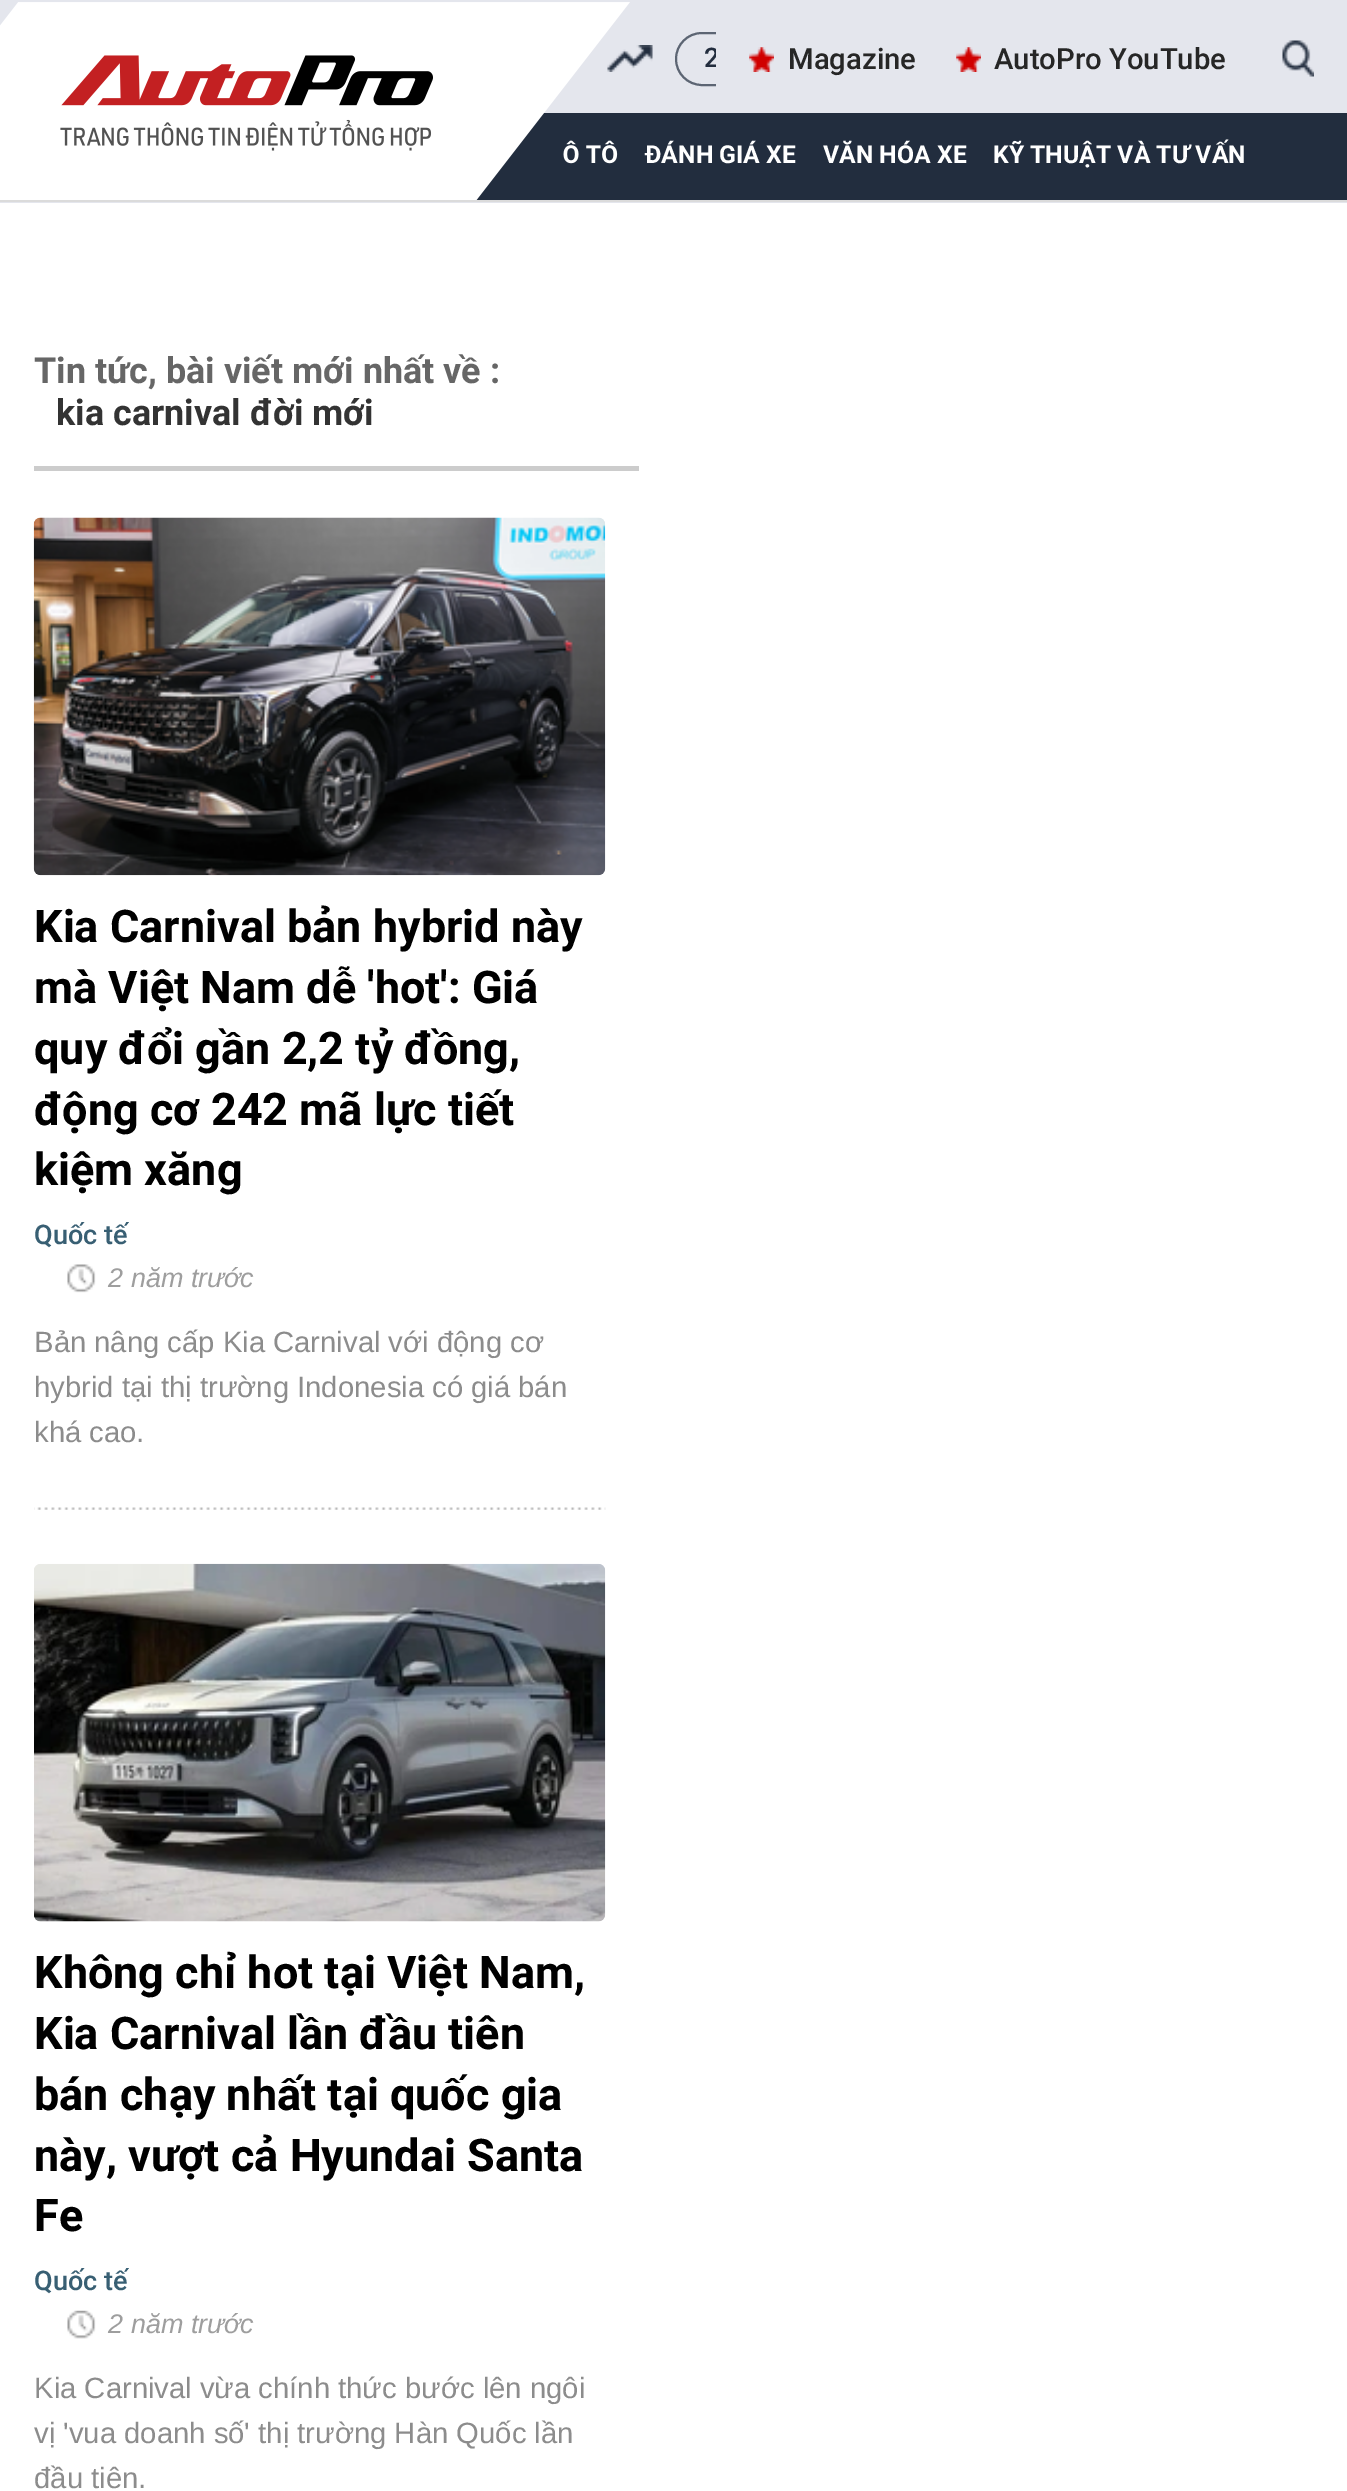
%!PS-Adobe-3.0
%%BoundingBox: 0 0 1347 2491
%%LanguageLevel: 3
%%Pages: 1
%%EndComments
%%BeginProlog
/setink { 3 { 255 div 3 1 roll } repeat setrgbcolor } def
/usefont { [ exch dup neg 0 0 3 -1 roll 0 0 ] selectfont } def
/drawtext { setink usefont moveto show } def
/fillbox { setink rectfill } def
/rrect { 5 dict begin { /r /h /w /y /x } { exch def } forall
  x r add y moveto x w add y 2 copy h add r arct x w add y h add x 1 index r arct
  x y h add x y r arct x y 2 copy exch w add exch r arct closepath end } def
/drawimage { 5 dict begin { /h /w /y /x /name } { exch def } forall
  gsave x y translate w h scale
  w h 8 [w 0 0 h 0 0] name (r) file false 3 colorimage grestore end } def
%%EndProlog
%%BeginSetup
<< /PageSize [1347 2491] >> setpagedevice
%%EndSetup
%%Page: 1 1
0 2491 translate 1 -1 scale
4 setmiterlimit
0 0 1347 2491 255 255 255 fillbox
0 0 1347 203 228 230 237 fillbox
0 200 1347 2 219 219 219 fillbox
(assets/img2.rgb) 607 45 46 27 drawimage
476 113 871 87 34 45 62 fillbox
(Ô TÔ) 563 163 /Roboto-Bold 24.75 255 255 255 drawtext
(assets/img1.rgb) 0 2 630 198 drawimage
(assets/img3.rgb) 749 47 25 25 drawimage
(Magazine) 788 69 /Roboto-Medium 29.25 38 38 38 drawtext
gsave
675 0 41 113 rectclip
92 101 115 setink
2 setlinewidth
676 33 239 52 26 rrect stroke
(2) 704 67 /Roboto-Medium 27 34 45 62 drawtext
grestore
(assets/img4.rgb) 956 47 25 25 drawimage
(AutoPro YouTube) 994 69 /Roboto-Medium 29.25 38 38 38 drawtext
(assets/img5.rgb) 1282 40 32 37 drawimage
(ĐÁNH GIÁ XE) 645 163 /Roboto-Bold 24.75 255 255 255 drawtext
(VĂN HÓA XE) 823 163 /Roboto-Bold 24.75 255 255 255 drawtext
(KỸ THUẬT VÀ TƯ VẤN) 993 163 /Roboto-Bold 24.75 255 255 255 drawtext
34 466 605 5 204 204 204 fillbox
(Tin tức, bài viết mới nhất về :) 34 383 /Roboto-Bold 36 102 102 102 drawtext
(kia carnival đời mới) 56 425 /Roboto-Bold 36 51 51 51 drawtext
(assets/img6.rgb) 33 517 573 359 drawimage
(Kia Carnival bản hybrid này) 34 942 /Roboto-Bold 45 0 0 0 drawtext
(mà Việt Nam dễ 'hot': Giá) 34 1003 /Roboto-Bold 45 0 0 0 drawtext
(quy đổi gần 2,2 tỷ đồng,) 34 1064 /Roboto-Bold 45 0 0 0 drawtext
(động cơ 242 mã lực tiết) 34 1125 /Roboto-Bold 45 0 0 0 drawtext
(kiệm xăng) 34 1185 /Roboto-Bold 45 0 0 0 drawtext
(Quốc tế) 34 1244 /Roboto-Medium 27 56 95 115 drawtext
(assets/img7.rgb) 67 1264 29 29 drawimage
(2 năm trước) 108 1287 /LiberationSans-Italic 27 158 158 158 drawtext
(Bản nâng cấp Kia Carnival với động cơ) 34 1352 /LiberationSans-Regular 29.25 140 140 140 drawtext
(hybrid tại thị trường Indonesia có giá bán) 34 1397 /LiberationSans-Regular 29.25 140 140 140 drawtext
(khá cao.) 34 1442 /LiberationSans-Regular 29.25 140 140 140 drawtext
(assets/img8.rgb) 34 1507 572 3 drawimage
(assets/img9.rgb) 34 1563 572 359 drawimage
(Không chỉ hot tại Việt Nam,) 34 1988 /Roboto-Bold 45 0 0 0 drawtext
(Kia Carnival lần đầu tiên) 34 2049 /Roboto-Bold 45 0 0 0 drawtext
(bán chạy nhất tại quốc gia) 34 2110 /Roboto-Bold 45 0 0 0 drawtext
(này, vượt cả Hyundai Santa) 34 2171 /Roboto-Bold 45 0 0 0 drawtext
(Fe) 34 2231 /Roboto-Bold 45 0 0 0 drawtext
(Quốc tế) 34 2290 /Roboto-Medium 27 56 95 115 drawtext
(assets/img10.rgb) 67 2310 29 29 drawimage
(2 năm trước) 108 2333 /LiberationSans-Italic 27 158 158 158 drawtext
(Kia Carnival vừa chính thức bước lên ngôi) 34 2398 /LiberationSans-Regular 29.25 140 140 140 drawtext
(vị 'vua doanh số' thị trường Hàn Quốc lần) 34 2443 /LiberationSans-Regular 29.25 140 140 140 drawtext
(đầu tiên.) 34 2488 /LiberationSans-Regular 29.25 140 140 140 drawtext
showpage
%%EOF
